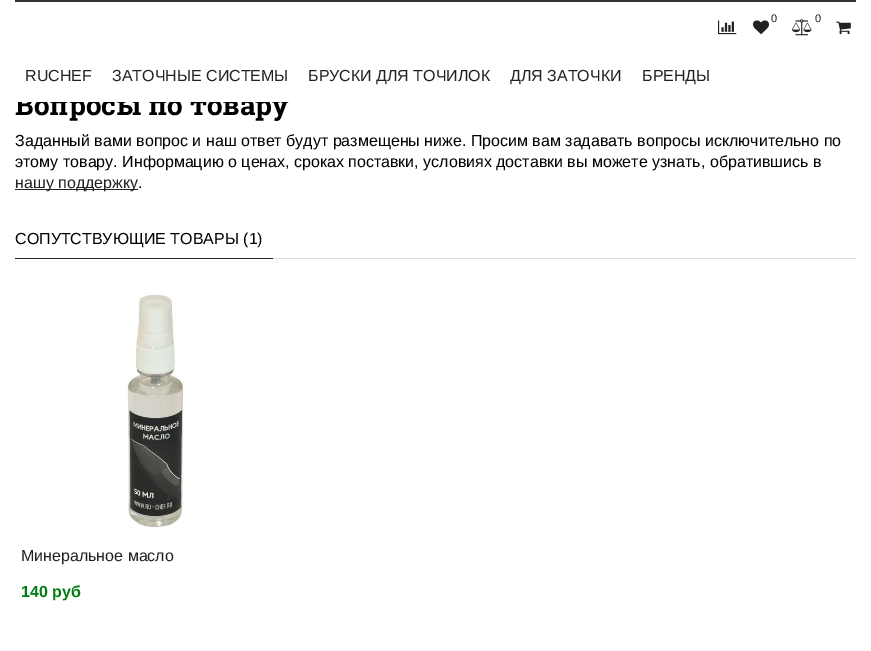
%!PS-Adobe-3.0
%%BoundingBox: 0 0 871 651
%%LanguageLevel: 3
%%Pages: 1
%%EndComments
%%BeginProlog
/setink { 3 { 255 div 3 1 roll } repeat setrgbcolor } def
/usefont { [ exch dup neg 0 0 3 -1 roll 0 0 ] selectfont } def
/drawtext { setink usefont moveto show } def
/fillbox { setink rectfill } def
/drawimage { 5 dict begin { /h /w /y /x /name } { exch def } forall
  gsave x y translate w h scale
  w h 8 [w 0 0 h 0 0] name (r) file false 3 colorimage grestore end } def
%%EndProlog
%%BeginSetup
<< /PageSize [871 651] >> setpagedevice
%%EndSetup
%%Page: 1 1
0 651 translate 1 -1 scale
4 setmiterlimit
0 0 871 651 255 255 255 fillbox
(Вопросы по товару) 15 115 /RobotoSlab-Bold 28 0 0 0 drawtext
15 95 274 7 255 255 255 fillbox
15 0 841 2 51 51 51 fillbox
(0) 771 22 /LiberationSans-Regular 11 34 34 34 drawtext
(assets/img1.rgb) 753 20 16 15 drawimage
(assets/img2.rgb) 792 19 20 17 drawimage
(0) 815 22 /LiberationSans-Regular 11 34 34 34 drawtext
(assets/img3.rgb) 718 20 19 15 drawimage
(assets/img4.rgb) 836 21 15 14 drawimage
(RUCHEF) 25 81 /LiberationSans-Regular 16 34 34 34 drawtext
(ЗАТОЧНЫЕ СИСТЕМЫ) 112 81 /LiberationSans-Regular 16 34 34 34 drawtext
(БРУСКИ ДЛЯ ТОЧИЛОК) 308 81 /LiberationSans-Regular 16 34 34 34 drawtext
(ДЛЯ ЗАТОЧКИ) 510 81 /LiberationSans-Regular 16 34 34 34 drawtext
(БРЕНДЫ) 642 81 /LiberationSans-Regular 16 34 34 34 drawtext
(Заданный вами вопрос и наш ответ будут размещены ниже. Просим вам задавать вопросы исключительно по) 15 146 /LiberationSans-Regular 16 0 0 0 drawtext
(этому товару. Информацию о ценах, сроках поставки, условиях доставки вы можете узнать, обратившись в) 15 167 /LiberationSans-Regular 16 0 0 0 drawtext
15 189 123 1 34 34 34 fillbox
(нашу поддержку) 15 188 /LiberationSans-Regular 16 34 34 34 drawtext
(.) 138 188 /LiberationSans-Regular 16 0 0 0 drawtext
273 258 583 1 221 221 221 fillbox
15 258 258 1 34 34 34 fillbox
(СОПУТСТВУЮЩИЕ ТОВАРЫ \(1\)) 15 244 /LiberationSans-Regular 16 0 0 0 drawtext
(assets/img5.rgb) 126 293 58 235 drawimage
(Минеральное масло) 21 561 /LiberationSans-Regular 16 34 34 34 drawtext
(140 руб) 21 597 /LiberationSans-Bold 16 0 125 17 drawtext
showpage
%%EOF
